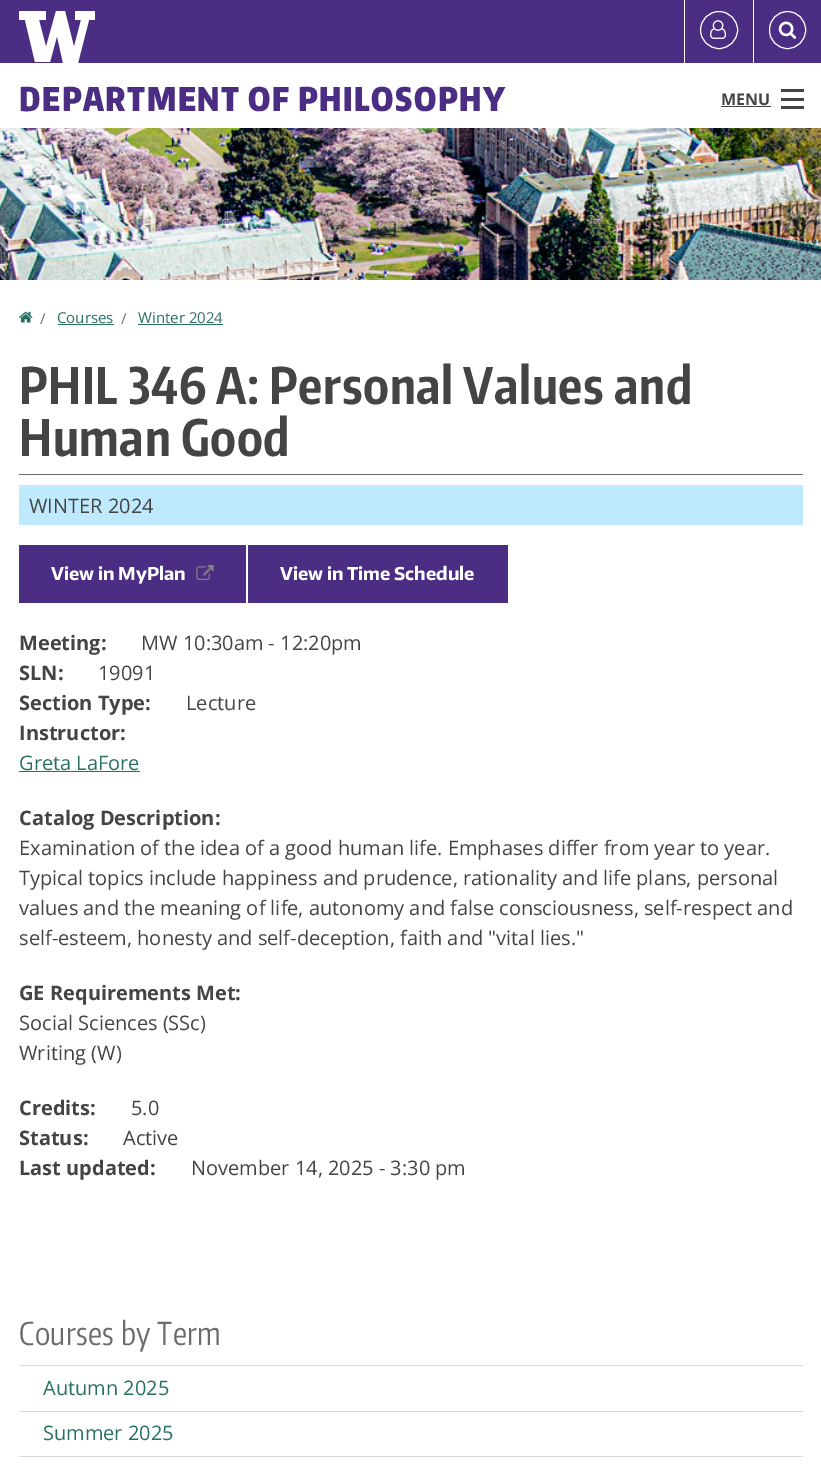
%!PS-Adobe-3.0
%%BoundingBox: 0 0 821 1464
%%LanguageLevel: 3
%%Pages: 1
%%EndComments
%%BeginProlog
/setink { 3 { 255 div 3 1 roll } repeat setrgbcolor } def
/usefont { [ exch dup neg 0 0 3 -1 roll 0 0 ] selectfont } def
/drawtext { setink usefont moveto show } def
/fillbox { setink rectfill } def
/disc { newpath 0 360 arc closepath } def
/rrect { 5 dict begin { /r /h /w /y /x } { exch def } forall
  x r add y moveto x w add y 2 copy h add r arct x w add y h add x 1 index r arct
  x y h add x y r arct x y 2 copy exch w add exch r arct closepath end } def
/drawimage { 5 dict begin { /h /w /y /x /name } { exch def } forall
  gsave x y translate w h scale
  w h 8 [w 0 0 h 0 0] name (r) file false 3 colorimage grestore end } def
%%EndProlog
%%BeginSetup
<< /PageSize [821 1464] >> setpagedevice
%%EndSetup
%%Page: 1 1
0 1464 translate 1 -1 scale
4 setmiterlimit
0 0 821 1464 255 255 255 fillbox
0 0 821 63 75 46 131 fillbox
255 255 255 setink
75 11 moveto 75 20 lineto 81 20 lineto 74 47 lineto 65 11 lineto 56 11 lineto 46 47 lineto 39 20 lineto 46 20 lineto 46 11 lineto 19 11 lineto 19 20 lineto 25 20 lineto 35 62 lineto 50 62 lineto 57 36 lineto 63 63 lineto 78 63 lineto 89 20 lineto 95 20 lineto 95 11 lineto closepath fill
684 0 1 63 255 255 255 fillbox
719 30 18.5 disc stroke
(assets/img1.rgb) 710 20 17 19 drawimage
753 0 1 63 255 255 255 fillbox
769.5 11.5 36 37 18 rrect stroke
(assets/img2.rgb) 778 21 19 18 drawimage
/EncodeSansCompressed-Black 32.5 usefont
75 46 131 setink
19 111 moveto 1.6 0 (DEPARTMENT OF PHILOSOPHY) ashow
(MENU) 721 105 /OpenSans-Bold 16 68 68 68 drawtext
721 106 50 1 68 68 68 fillbox
781 106 23 3 68 68 68 fillbox
781 98 23 3 68 68 68 fillbox
781 89 23 3 68 68 68 fillbox
(assets/img3.rgb) 0 128 821 152 drawimage
(assets/img4.rgb) 19 311 14 12 drawimage
(/) 40 324 /OpenSans-Regular 15 107 107 107 drawtext
(Courses) 57 323 /OpenSans-Regular 15 41 112 100 drawtext
58 324 56 1 41 112 100 fillbox
(/) 121 324 /OpenSans-Regular 15 107 107 107 drawtext
(Winter 2024) 138 323 /OpenSans-Regular 15 41 112 100 drawtext
138 324 85 1 41 112 100 fillbox
/EncodeSansCompressed-Bold 50 usefont
68 68 68 setink
19 404 moveto 0.6 0 (PHIL 346 A: Personal Values and) ashow
19 456 moveto 0.6 0 (Human Good) ashow
19 474 784 1 107 107 107 fillbox
19 485 784 40 191 234 254 fillbox
(WINTER 2024) 29 513 /OpenSans-Regular 20 68 68 68 drawtext
19 545 227 58 75 46 131 fillbox
(View in MyPlan) 51 580 /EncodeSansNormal-Bold 17.5 255 255 255 drawtext
(assets/img5.rgb) 196 565 18 15 drawimage
248 545 260 58 75 46 131 fillbox
(View in Time Schedule) 280 580 /EncodeSansNormal-Bold 17.5 255 255 255 drawtext
(Meeting:) 19 650 /OpenSans-Bold 20 68 68 68 drawtext
(MW 10:30am - 12:20pm) 141 650 /OpenSans-Regular 20 68 68 68 drawtext
(SLN:) 19 680 /OpenSans-Bold 20 68 68 68 drawtext
(19091) 98 680 /OpenSans-Regular 20 68 68 68 drawtext
(Section Type:) 19 710 /OpenSans-Bold 20 68 68 68 drawtext
(Lecture) 186 710 /OpenSans-Regular 20 68 68 68 drawtext
(Instructor:) 19 740 /OpenSans-Bold 20 68 68 68 drawtext
(Greta LaFore) 19 770 /OpenSans-Regular 20 41 112 100 drawtext
19 771 121 1 41 112 100 fillbox
(Catalog Description:) 19 825 /OpenSans-Bold 20 68 68 68 drawtext
(Examination of the idea of a good human life. Emphases differ from year to year.) 19 855 /OpenSans-Regular 20 68 68 68 drawtext
(Typical topics include happiness and prudence, rationality and life plans, personal) 19 885 /OpenSans-Regular 20 68 68 68 drawtext
(values and the meaning of life, autonomy and false consciousness, self-respect and) 19 915 /OpenSans-Regular 20 68 68 68 drawtext
(self-esteem, honesty and self-deception, faith and "vital lies.") 19 945 /OpenSans-Regular 20 68 68 68 drawtext
(GE Requirements Met:) 19 1000 /OpenSans-Bold 20 68 68 68 drawtext
(Social Sciences \(SSc\)) 19 1030 /OpenSans-Regular 20 68 68 68 drawtext
(Writing \(W\)) 19 1060 /OpenSans-Regular 20 68 68 68 drawtext
(Credits:) 19 1115 /OpenSans-Bold 20 68 68 68 drawtext
(5.0) 131 1115 /OpenSans-Regular 20 68 68 68 drawtext
(Status:) 19 1145 /OpenSans-Bold 20 68 68 68 drawtext
(Active) 123 1145 /OpenSans-Regular 20 68 68 68 drawtext
(Last updated:) 19 1175 /OpenSans-Bold 20 68 68 68 drawtext
(November 14, 2025 - 3:30 pm) 191 1175 /OpenSans-Regular 20 68 68 68 drawtext
/EncodeSansCompressed-Regular 31.25 usefont
107 107 107 setink
19 1345 moveto 0.4 0 (Courses by Term) ashow
19 1365 784 1 217 217 217 fillbox
(Autumn 2025) 43 1395 /OpenSans-Regular 20 41 112 100 drawtext
19 1411 784 1 217 217 217 fillbox
(Summer 2025) 43 1440 /OpenSans-Regular 20 41 112 100 drawtext
19 1456 784 1 217 217 217 fillbox
showpage
%%EOF
